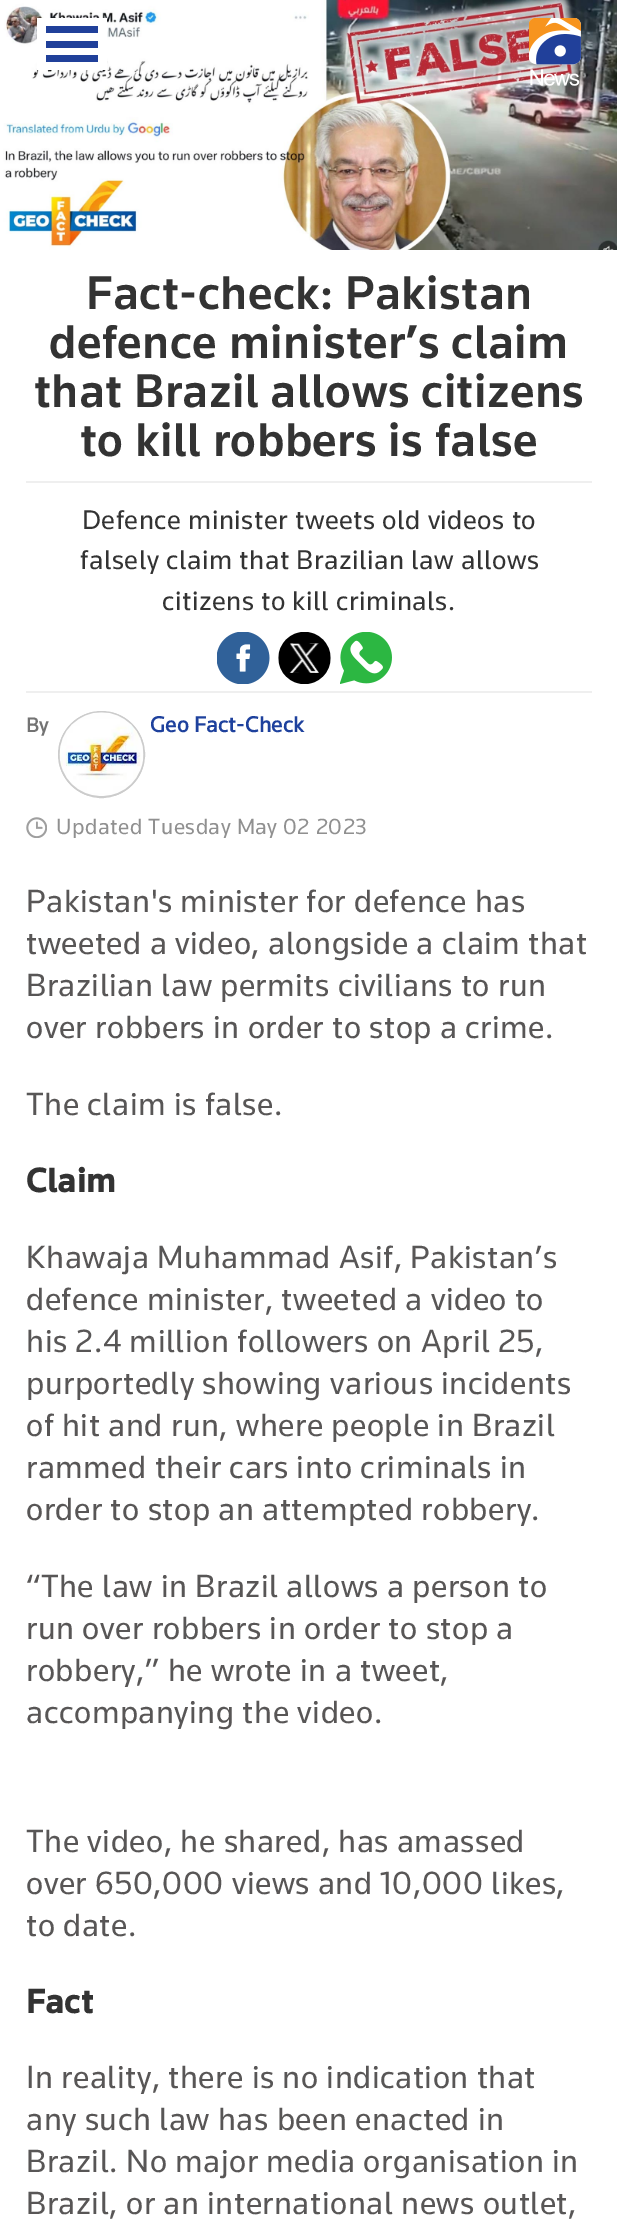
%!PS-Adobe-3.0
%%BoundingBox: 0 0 617 2222
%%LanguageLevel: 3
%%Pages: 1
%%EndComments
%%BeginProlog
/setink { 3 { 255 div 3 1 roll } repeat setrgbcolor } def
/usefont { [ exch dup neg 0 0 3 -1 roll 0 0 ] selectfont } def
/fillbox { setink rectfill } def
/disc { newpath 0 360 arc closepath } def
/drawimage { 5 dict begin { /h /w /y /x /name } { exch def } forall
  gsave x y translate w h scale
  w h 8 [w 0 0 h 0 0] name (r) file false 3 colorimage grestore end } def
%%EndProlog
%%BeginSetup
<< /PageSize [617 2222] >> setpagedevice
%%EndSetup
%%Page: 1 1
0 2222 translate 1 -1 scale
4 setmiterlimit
0 0 617 2222 255 255 255 fillbox
(assets/img1.rgb) 3 0 614 250 drawimage
37 18 70 52 255 255 255 fillbox
46 26 52 7 32 64 154 fillbox
46 41 52 7 32 64 154 fillbox
46 55 52 7 32 64 154 fillbox
(assets/img2.rgb) 529 18 52 68 drawimage
/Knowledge-Medium 49 usefont
51 51 51 setink
86 309 moveto 0.55 0 (Fact-check: Pakistan) ashow
49 358 moveto 0.55 0 (defence minister’s claim) ashow
34 407 moveto 0.55 0 (that Brazil allows citizens) ashow
80 456 moveto 0.55 0 (to kill robbers is false) ashow
26 481 566 2 239 239 239 fillbox
26 691 566 2 239 239 239 fillbox
/Knowledge-Regular 28 usefont
51 51 51 setink
82 529 moveto 0.55 0 (Defence minister tweets old videos to) ashow
80 569 moveto 0.55 0 (falsely claim that Brazilian law allows) ashow
162 610 moveto 0.55 0 (citizens to kill criminals.) ashow
(assets/img3.rgb) 217 632 53 52 drawimage
(assets/img4.rgb) 278 632 53 52 drawimage
(assets/img5.rgb) 340 632 52 52 drawimage
/Knowledge-Bold 21 usefont
115 115 115 setink
26 732 moveto 0.3 0 (By) ashow
204 204 204 setink
2 setlinewidth
101.5 754.5 42.5 disc stroke
(assets/img6.rgb) 59 712 85 84 drawimage
/Knowledge-Bold 22.75 usefont
30 65 157 setink
150 732 moveto 0.3 0 (Geo Fact-Check) ashow
(assets/img7.rgb) 26 817 21 21 drawimage
/Knowledge-Regular 22.75 usefont
144 144 144 setink
56 834 moveto 0.55 0 (Updated Tuesday May 02 2023) ashow
/Knowledge-Regular 33.25 usefont
88 86 86 setink
26 912 moveto 0.55 0 (Pakistan's minister for defence has) ashow
26 954 moveto 0.55 0 (tweeted a video, alongside a claim that) ashow
26 996 moveto 0.55 0 (Brazilian law permits civilians to run) ashow
26 1038 moveto 0.55 0 (over robbers in order to stop a crime.) ashow
26 1115 moveto 0.55 0 (The claim is false.) ashow
/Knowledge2-Bold 35 usefont
51 51 51 setink
26 1192 moveto 0.55 0 (Claim) ashow
/Knowledge-Regular 33.25 usefont
88 86 86 setink
26 1268 moveto 0.55 0 (Khawaja Muhammad Asif, Pakistan’s) ashow
26 1310 moveto 0.55 0 (defence minister, tweeted a video to) ashow
26 1352 moveto 0.55 0 (his 2.4 million followers on April 25,) ashow
26 1394 moveto 0.55 0 (purportedly showing various incidents) ashow
26 1436 moveto 0.55 0 (of hit and run, where people in Brazil) ashow
26 1478 moveto 0.55 0 (rammed their cars into criminals in) ashow
26 1520 moveto 0.55 0 (order to stop an attempted robbery.) ashow
26 1597 moveto 0.55 0 (“The law in Brazil allows a person to) ashow
26 1639 moveto 0.55 0 (run over robbers in order to stop a) ashow
26 1681 moveto 0.55 0 (robbery,” he wrote in a tweet,) ashow
26 1723 moveto 0.55 0 (accompanying the video.) ashow
26 1852 moveto 0.55 0 (The video, he shared, has amassed) ashow
26 1894 moveto 0.55 0 (over 650,000 views and 10,000 likes,) ashow
26 1936 moveto 0.55 0 (to date.) ashow
/Knowledge2-Bold 35 usefont
51 51 51 setink
26 2013 moveto 0.55 0 (Fact) ashow
/Knowledge-Regular 33.25 usefont
88 86 86 setink
26 2088 moveto 0.55 0 (In reality, there is no indication that) ashow
26 2130 moveto 0.55 0 (any such law has been enacted in) ashow
26 2172 moveto 0.55 0 (Brazil. No major media organisation in) ashow
26 2214 moveto 0.55 0 (Brazil, or an international news outlet,) ashow
showpage
%%EOF
